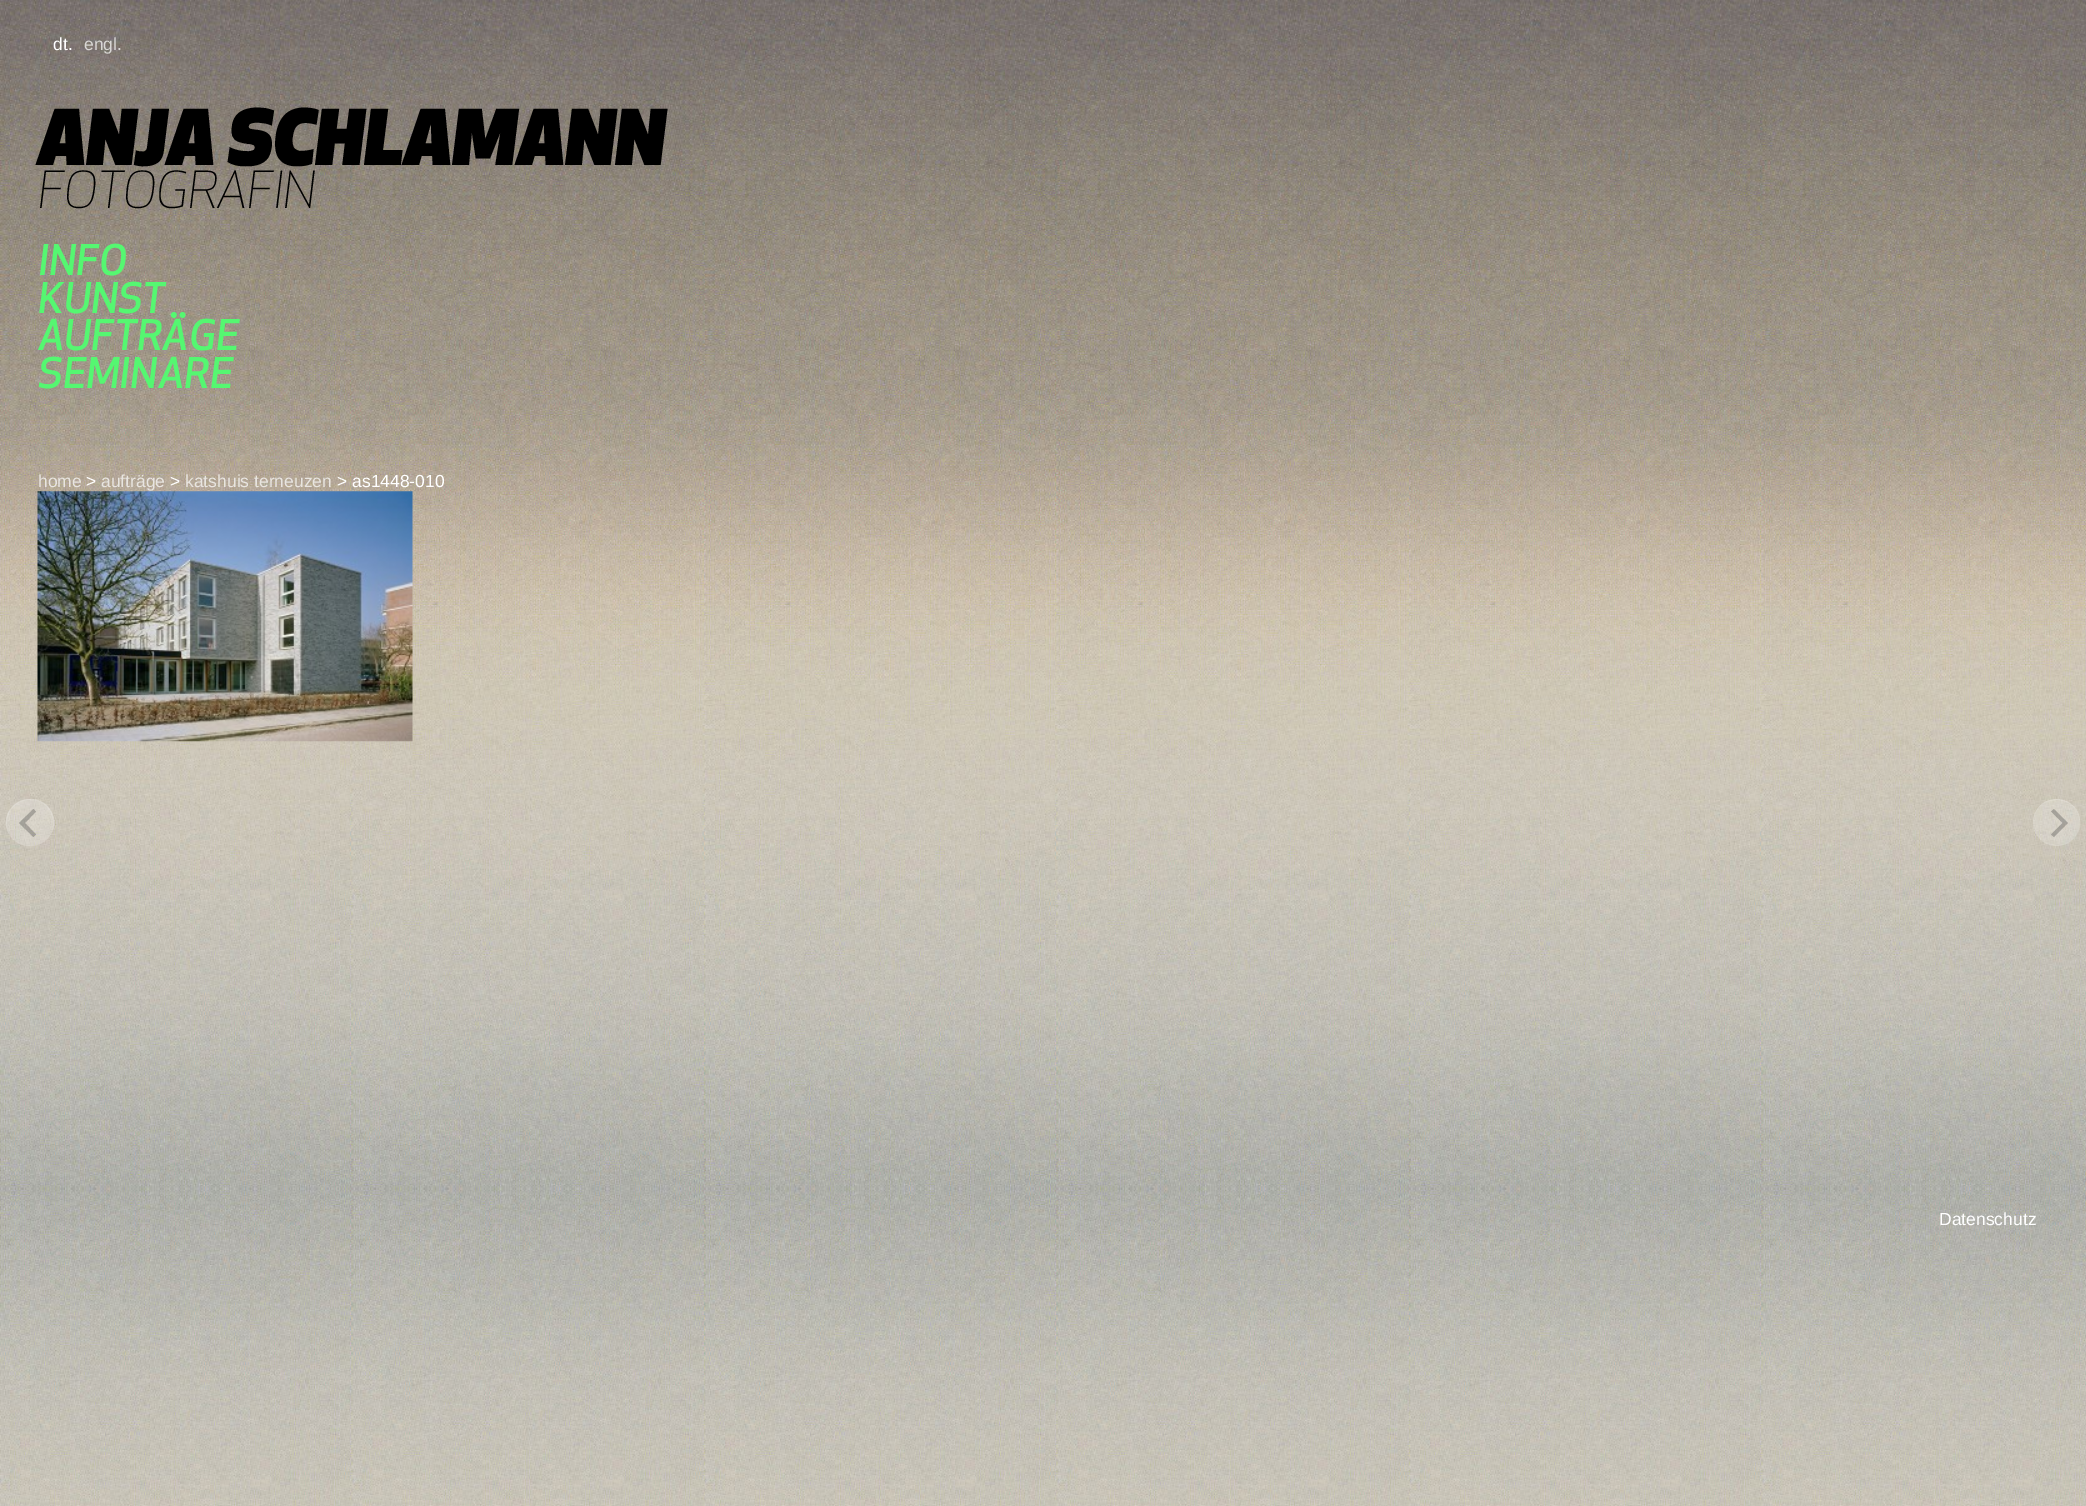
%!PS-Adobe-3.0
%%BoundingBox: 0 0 2086 1506
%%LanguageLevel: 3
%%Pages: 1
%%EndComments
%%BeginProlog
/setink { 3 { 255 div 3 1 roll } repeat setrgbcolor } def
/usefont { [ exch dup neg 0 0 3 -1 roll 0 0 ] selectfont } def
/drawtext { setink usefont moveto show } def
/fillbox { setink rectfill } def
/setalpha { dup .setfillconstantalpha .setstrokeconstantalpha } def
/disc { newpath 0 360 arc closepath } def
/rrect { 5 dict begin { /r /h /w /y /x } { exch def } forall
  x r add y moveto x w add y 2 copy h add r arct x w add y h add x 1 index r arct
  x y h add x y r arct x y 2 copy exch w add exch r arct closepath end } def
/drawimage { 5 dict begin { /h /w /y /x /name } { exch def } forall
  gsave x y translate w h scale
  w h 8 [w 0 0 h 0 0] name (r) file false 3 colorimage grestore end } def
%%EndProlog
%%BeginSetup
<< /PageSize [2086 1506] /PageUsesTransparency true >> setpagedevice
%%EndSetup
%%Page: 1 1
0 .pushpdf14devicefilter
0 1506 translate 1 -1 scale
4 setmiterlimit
0 0 2086 1506 255 255 255 fillbox
(assets/img1.rgb) 0 0 2086 1506 drawimage
(dt.) 53 50 /LiberationSans-Regular 17.5 255 255 255 drawtext
(engl.) 84 50 /LiberationSans-Regular 17.5 216 214 212 drawtext
(ANJA SCHLAMANN) 38 165 /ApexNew-BoldItalic 75 0 0 0 drawtext
(FOTOGRAFIN) 38 208 /ApexNew-MediumItalic 50 0 0 0 drawtext
(INFO) 38 275 /ApexNew-SemiBoldItalic 41.25 85 247 113 drawtext
(KUNST) 38 313 /ApexNew-SemiBoldItalic 41.25 85 247 113 drawtext
(AUFTRÄGE) 38 350 /ApexNew-SemiBoldItalic 41.25 85 247 113 drawtext
(SEMINARE) 38 388 /ApexNew-SemiBoldItalic 41.25 85 247 113 drawtext
(home) 38 487 /LiberationSans-Regular 17.5 232 229 224 drawtext
(>) 86 487 /LiberationSans-Regular 17.5 255 255 255 drawtext
(aufträge) 101 487 /LiberationSans-Regular 17.5 232 229 224 drawtext
(>) 170 487 /LiberationSans-Regular 17.5 255 255 255 drawtext
(katshuis terneuzen) 185 487 /LiberationSans-Regular 17.5 232 229 224 drawtext
(> as1448-010) 337 487 /LiberationSans-Regular 17.5 255 255 255 drawtext
(assets/img2.rgb) 37 491 376 251 drawimage
0.22 setalpha
6 799 48 47 23.5 rrect fill
0.15 setalpha
30 800 moveto 49 800 56 818 52 832 curveto 55 826 55 819 52 813 curveto 40 785 -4 803 8 832 curveto 4 818 11 800 30 800 curveto closepath fill
0.3 setalpha
51 51 51 setink
19 823 moveto 33.5 837 lineto 36 834.5 lineto 25 823 lineto 36 811.5 lineto 33.5 809 lineto closepath fill
0.22 setalpha
255 255 255 setink
2056.5 822.5 23.5 disc fill
0.15 setalpha
2056 800 moveto 2072 800 2080 811 2080 823 curveto 2081 795 2040 790 2034 817 curveto 2036 808 2043 800 2056 800 curveto closepath fill
0.3 setalpha
51 51 51 setink
2068 823 moveto 2054 809 lineto 2051 811.5 lineto 2062.5 823 lineto 2051 834.5 lineto 2054 837 lineto closepath fill
1 setalpha
(Datenschutz) 1939 1225 /LiberationSans-Regular 17.5 255 255 255 drawtext
.poppdf14devicefilter showpage
%%EOF
